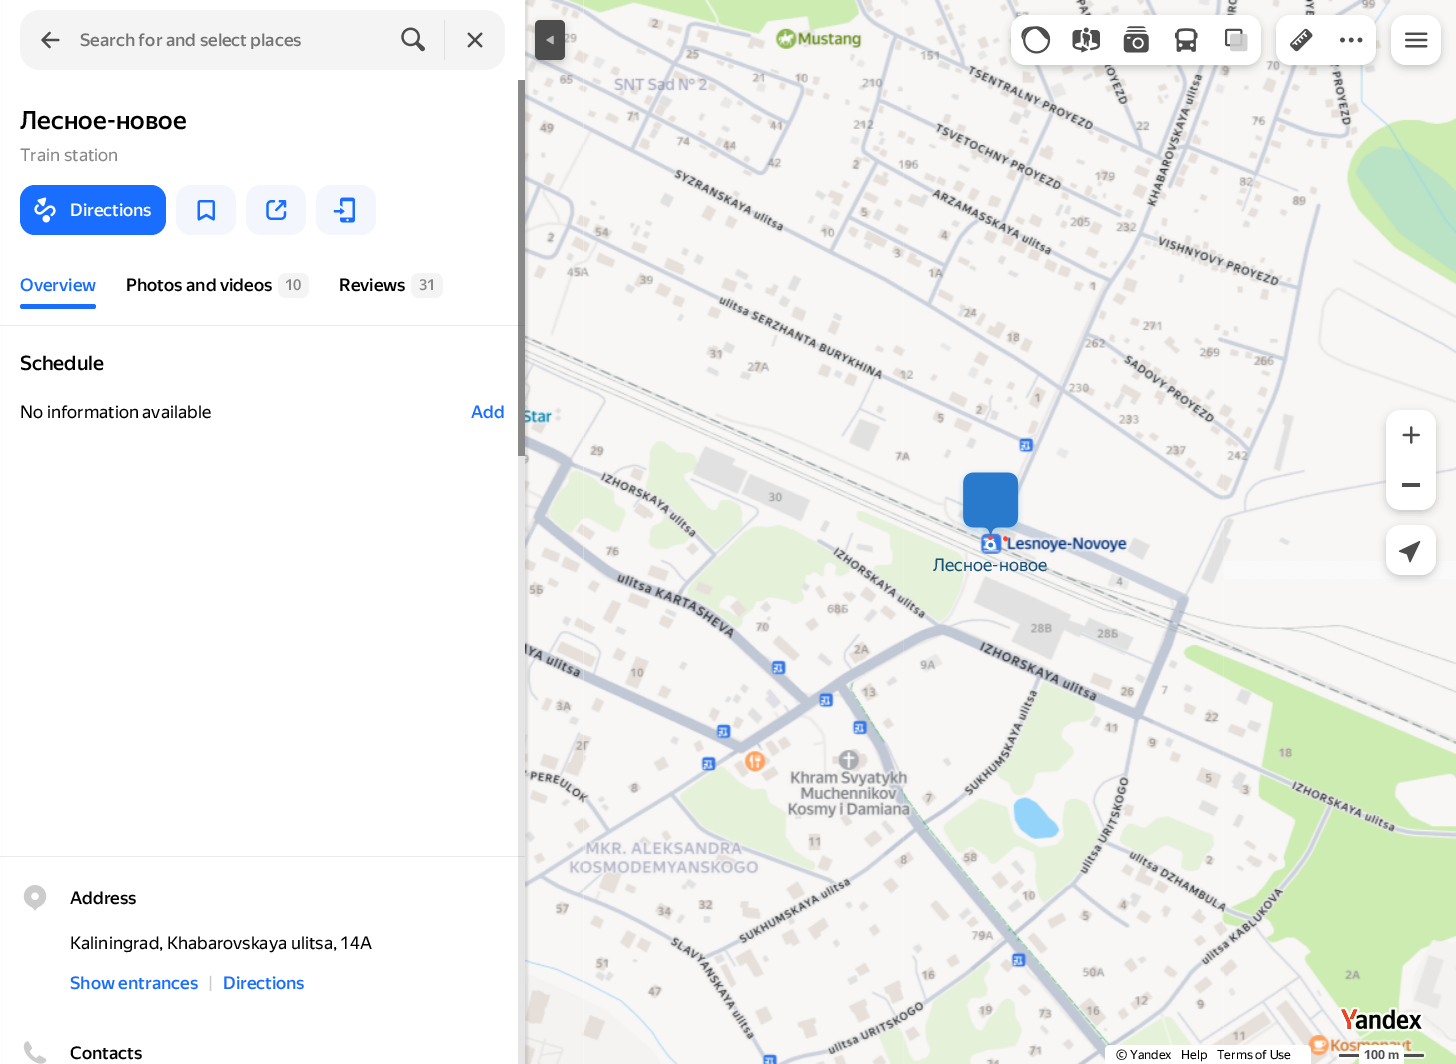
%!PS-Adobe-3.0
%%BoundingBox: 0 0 1456 1064
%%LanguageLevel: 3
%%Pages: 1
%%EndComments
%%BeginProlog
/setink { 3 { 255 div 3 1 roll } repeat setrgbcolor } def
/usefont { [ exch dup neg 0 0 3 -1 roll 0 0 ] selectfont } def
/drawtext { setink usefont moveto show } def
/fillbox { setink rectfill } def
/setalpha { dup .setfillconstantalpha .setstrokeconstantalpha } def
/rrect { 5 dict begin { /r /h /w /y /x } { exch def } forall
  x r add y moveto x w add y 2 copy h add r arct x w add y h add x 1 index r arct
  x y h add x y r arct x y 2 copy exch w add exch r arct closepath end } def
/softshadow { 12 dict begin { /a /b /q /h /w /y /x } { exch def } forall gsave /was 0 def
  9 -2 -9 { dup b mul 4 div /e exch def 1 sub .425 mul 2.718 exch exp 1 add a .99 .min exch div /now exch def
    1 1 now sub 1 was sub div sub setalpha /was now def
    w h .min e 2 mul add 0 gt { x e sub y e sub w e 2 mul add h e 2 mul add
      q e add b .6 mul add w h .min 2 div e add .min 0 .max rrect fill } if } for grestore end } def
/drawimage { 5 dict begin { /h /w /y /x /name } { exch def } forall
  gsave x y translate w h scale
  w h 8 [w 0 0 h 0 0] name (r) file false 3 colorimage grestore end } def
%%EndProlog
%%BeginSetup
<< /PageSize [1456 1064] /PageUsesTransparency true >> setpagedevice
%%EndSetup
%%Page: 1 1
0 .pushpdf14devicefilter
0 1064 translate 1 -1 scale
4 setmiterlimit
0 0 1456 1064 255 255 255 fillbox
(assets/img1.rgb) 583 0 873 1064 drawimage
(assets/img23.rgb) 525 0 59 250 drawimage
(assets/img27.rgb) 525 250 59 320 drawimage
(assets/img31.rgb) 525 570 59 320 drawimage
(assets/img36.rgb) 583 890 321 174 drawimage
(assets/img35.rgb) 525 890 59 174 drawimage
0 0 0 setink
3 0 525 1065 0 1 0.1 softshadow
535 23 30 40 5 4 0.2 softshadow
2 0 523 1064 255 255 255 fillbox
244 244 244 setink
20 10 485 60 20 rrect fill
(assets/img2.rgb) 41 31 19 18 drawimage
(Search for and select places) 80 46 /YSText-Medium 17.5 117 117 117 drawtext
(assets/img3.rgb) 401 27 24 25 drawimage
444 20 1 40 224 224 224 fillbox
(assets/img4.rgb) 467 32 16 16 drawimage
(assets/img24.rgb) 583 0 321 250 drawimage
(assets/img25.rgb) 903 0 321 250 drawimage
(assets/img26.rgb) 1223 0 233 250 drawimage
0 0 0 setink
1011 18 250 50 15 4 0.2 softshadow
255 255 255 setink
1026 15 moveto 1061 15 lineto 1061 65 lineto 1026 65 lineto 1017.5 65 1011 58.5 1011 50 curveto 1011 30 lineto 1011 21.5 1017.5 15 1026 15 curveto closepath fill
(assets/img5.rgb) 1021 26 30 28 drawimage
1061 15 150 50 255 255 255 fillbox
(assets/img6.rgb) 1072 27 28 26 drawimage
1211 15 moveto 1246 15 lineto 1254.5 15 1261 21.5 1261 30 curveto 1261 50 lineto 1261 58.5 1254.5 65 1246 65 curveto 1211 65 lineto closepath fill
(assets/img7.rgb) 1225 28 23 24 drawimage
(assets/img8.rgb) 1123 26 26 27 drawimage
(assets/img9.rgb) 1175 28 23 24 drawimage
0 0 0 setink
1276 18 100 50 15 4 0.2 softshadow
255 255 255 setink
1291 15 moveto 1326 15 lineto 1326 65 lineto 1291 65 lineto 1282.5 65 1276 58.5 1276 50 curveto 1276 30 lineto 1276 21.5 1282.5 15 1291 15 curveto closepath fill
(assets/img10.rgb) 1290 28 23 24 drawimage
1326 15 moveto 1361 15 lineto 1369.5 15 1376 21.5 1376 30 curveto 1376 50 lineto 1376 58.5 1369.5 65 1361 65 curveto 1326 65 lineto closepath fill
(assets/img11.rgb) 1340 37 23 6 drawimage
0 0 0 setink
1391 18 50 50 15 4 0.2 softshadow
255 255 255 setink
1391 15 50 50 15 rrect fill
(assets/img12.rgb) 1405 32 23 16 drawimage
(assets/img28.rgb) 583 250 321 320 drawimage
(assets/img29.rgb) 903 250 321 320 drawimage
(assets/img30.rgb) 1223 250 233 311 drawimage
0 0 0 setink
1386 413 50 100 15 4 0.2 softshadow
255 255 255 setink
1401 410 moveto 1421 410 lineto 1429.5 410 1436 416.5 1436 425 curveto 1436 460 lineto 1386 460 lineto 1386 425 lineto 1386 416.5 1392.5 410 1401 410 curveto closepath fill
(assets/img13.rgb) 1402 426 18 18 drawimage
1386 460 moveto 1436 460 lineto 1436 495 lineto 1436 503.5 1429.5 510 1421 510 curveto 1401 510 lineto 1392.5 510 1386 503.5 1386 495 curveto closepath fill
1402 483 18 4 77 77 77 fillbox
(assets/img32.rgb) 583 570 321 320 drawimage
(assets/img33.rgb) 903 570 321 320 drawimage
(assets/img34.rgb) 1223 579 233 311 drawimage
0 0 0 setink
1386 528 50 50 15 4 0.2 softshadow
255 255 255 setink
1386 525 50 50 15 rrect fill
(assets/img14.rgb) 1398 541 23 22 drawimage
77 77 77 setink
535 20 30 40 5 rrect fill
(assets/img15.rgb) 546 35 8 10 drawimage
(Лесное-новое) 20 129 /YSText-Medium 25 0 0 0 drawtext
(Train station) 20 161 /YSText-Regular 17.5 135 135 135 drawtext
25 109 255 setink
20 185 146 50 15 rrect fill
(assets/img16.rgb) 34 197 22 26 drawimage
(Directions) 70 216 /YSText-Medium 17.5 255 255 255 drawtext
243 246 252 setink
176 185 60 50 15 rrect fill
(assets/img17.rgb) 197 200 18 21 drawimage
246 185 60 50 15 rrect fill
(assets/img18.rgb) 266 200 21 20 drawimage
316 185 60 50 15 rrect fill
(assets/img19.rgb) 333 197 22 26 drawimage
(Overview) 20 291 /YSText-Medium 17.5 25 109 255 drawtext
(Photos and videos) 126 291 /YSText-Medium 17.5 0 0 0 drawtext
244 244 244 setink
278 273 31 25 8 rrect fill
(10) 285 290 /YSText-Medium 15 135 135 135 drawtext
(Reviews) 339 291 /YSText-Medium 17.5 0 0 0 drawtext
244 244 244 setink
411 273 32 25 8 rrect fill
(31) 419 290 /YSText-Medium 15 135 135 135 drawtext
25 109 255 setink
20 304 76 5 2.5 rrect fill
0 325 525 1 235 235 235 fillbox
(Schedule) 20 370 /YSText-Medium 20 0 0 0 drawtext
(No information available) 20 418 /YSText-Regular 17.5 0 0 0 drawtext
(Add) 471 418 /YSText-Medium 17.5 25 109 255 drawtext
0 856 525 1 235 235 235 fillbox
(assets/img20.rgb) 23 885 24 26 drawimage
(Address) 70 904 /YSText-Medium 17.5 0 0 0 drawtext
(Kaliningrad, Khabarovskaya ulitsa, 14А) 70 949 /YSText-Regular 17.5 0 0 0 drawtext
(Show entrances) 70 989 /YSText-Medium 17.5 25 109 255 drawtext
(|) 208 989 /YSText-Regular 17.5 204 204 204 drawtext
(Directions) 223 989 /YSText-Medium 17.5 25 109 255 drawtext
(assets/img21.rgb) 23 1041 24 23 drawimage
(Contacts) 70 1059 /YSText-Medium 17.5 0 0 0 drawtext
0.1 setalpha
518 80 7 984 0 0 0 fillbox
0.4 setalpha
518 80 7 376 0 0 0 fillbox
1 setalpha
(assets/img37.rgb) 903 890 321 174 drawimage
(assets/img38.rgb) 1223 890 233 174 drawimage
(assets/img22.rgb) 1339 1007 85 25 drawimage
255 255 255 setink
1110 1045 moveto 1306 1045 lineto 1309 1045 1311 1047 1311 1050 curveto 1311 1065 lineto 1105 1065 lineto 1105 1050 lineto 1105 1047 1107 1045 1110 1045 curveto closepath fill
(© Yandex) 1116 1059 /YSText-Regular 12.5 0 0 0 drawtext
(Help) 1181 1059 /YSText-Regular 12.5 0 0 0 drawtext
(Terms of Use) 1217 1059 /YSText-Regular 12.5 0 0 0 drawtext
0.6 setalpha
255 255 255 setink
1336 1051 90 8 4 rrect fill
1 setalpha
77 77 77 setink
1339 1054 85 3 1.5 rrect fill
255 255 255 setink
1364 1045 moveto 1399 1045 lineto 1402 1045 1404 1047 1404 1050 curveto 1404 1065 lineto 1359 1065 lineto 1359 1050 lineto 1359 1047 1361 1045 1364 1045 curveto closepath fill
(100 m) 1364 1059 /YSText-Bold 12.5 77 77 77 drawtext
255 68 51 setink
1004.5 541 moveto 1001.5 539.5 1003.5 535 1006.5 536.5 curveto 1009.5 538 1007.5 542.5 1004.5 541 curveto closepath 989.5 540 moveto 986.5 538.5 988.5 534 991.5 535 curveto 994.5 536.5 992.5 541 989.5 540 curveto closepath fill
(assets/img39.rgb) 958 469 66 81 drawimage
(Лесное-новое) 933 571 /YSText-Regular 17.5 23 80 120 drawtext
.poppdf14devicefilter showpage
%%EOF
